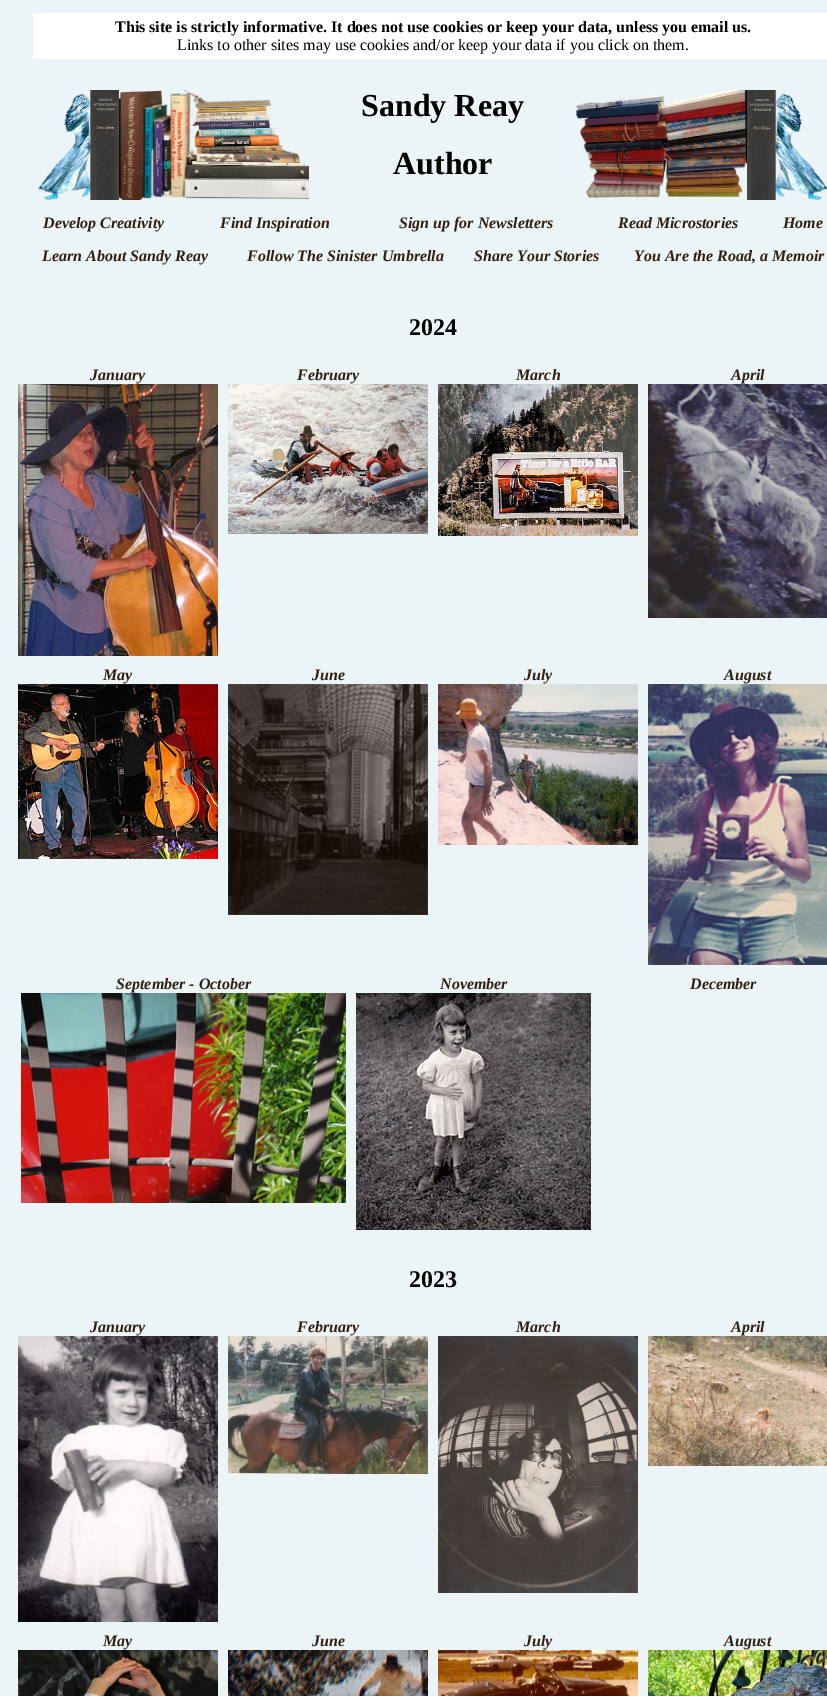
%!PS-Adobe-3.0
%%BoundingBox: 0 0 827 1696
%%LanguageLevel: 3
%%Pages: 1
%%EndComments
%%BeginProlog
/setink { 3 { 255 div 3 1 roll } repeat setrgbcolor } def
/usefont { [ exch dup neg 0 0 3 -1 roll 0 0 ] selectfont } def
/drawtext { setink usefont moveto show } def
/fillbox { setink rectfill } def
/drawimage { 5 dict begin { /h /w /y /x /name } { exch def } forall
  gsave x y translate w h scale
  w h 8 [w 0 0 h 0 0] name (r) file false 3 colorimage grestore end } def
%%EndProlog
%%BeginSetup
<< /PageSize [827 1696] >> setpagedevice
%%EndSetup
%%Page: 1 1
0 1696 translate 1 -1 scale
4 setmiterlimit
0 0 827 1696 235 244 246 fillbox
33 13 794 46 255 255 255 fillbox
(This site is strictly informative. It does not use cookies or keep your data, unless you email us.) 115 32 /LiberationSerif-Bold 16 0 0 0 drawtext
(Links to other sites may use cookies and/or keep your data if you click on them.) 177 50 /LiberationSerif-Regular 16 0 0 0 drawtext
(assets/img1.rgb) 37 90 82 110 drawimage
(assets/img2.rgb) 119 90 190 110 drawimage
(Sandy Reay) 361 116 /LiberationSerif-Bold 32 0 0 0 drawtext
(Author) 393 174 /LiberationSerif-Bold 32 0 0 0 drawtext
(assets/img3.rgb) 576 90 171 109 drawimage
(assets/img4.rgb) 747 90 80 110 drawimage
(Develop Creativity) 43 228 /LiberationSerif-BoldItalic 16 48 31 15 drawtext
(Find Inspiration) 220 228 /LiberationSerif-BoldItalic 16 48 31 15 drawtext
(Sign up for Newsletters) 399 228 /LiberationSerif-BoldItalic 16 48 31 15 drawtext
(Read Microstories) 618 228 /LiberationSerif-BoldItalic 16 48 31 15 drawtext
(Home) 783 228 /LiberationSerif-BoldItalic 16 48 31 15 drawtext
(Learn About Sandy Reay) 42 261 /LiberationSerif-BoldItalic 16 48 31 15 drawtext
(Follow The Sinister Umbrella) 247 261 /LiberationSerif-BoldItalic 16 48 31 15 drawtext
(Share Your Stories) 474 261 /LiberationSerif-BoldItalic 16 48 31 15 drawtext
(You Are the Road, a Memoir) 634 261 /LiberationSerif-BoldItalic 16 48 31 15 drawtext
(2024) 409 335 /LiberationSerif-Bold 24 0 0 0 drawtext
(January) 90 380 /LiberationSerif-BoldItalic 16 48 31 15 drawtext
(assets/img5.rgb) 18 384 200 272 drawimage
(February) 297 380 /LiberationSerif-BoldItalic 16 48 31 15 drawtext
(assets/img6.rgb) 228 384 200 150 drawimage
(March) 516 380 /LiberationSerif-BoldItalic 16 48 31 15 drawtext
(assets/img7.rgb) 438 384 200 152 drawimage
(April) 731 380 /LiberationSerif-BoldItalic 16 48 31 15 drawtext
(assets/img8.rgb) 648 384 179 234 drawimage
(May) 103 680 /LiberationSerif-BoldItalic 16 48 31 15 drawtext
(assets/img9.rgb) 18 684 200 175 drawimage
(June) 312 680 /LiberationSerif-BoldItalic 16 48 31 15 drawtext
(assets/img10.rgb) 228 684 200 231 drawimage
(July) 524 680 /LiberationSerif-BoldItalic 16 48 31 15 drawtext
(assets/img11.rgb) 438 684 200 161 drawimage
(August) 724 680 /LiberationSerif-BoldItalic 16 48 31 15 drawtext
(assets/img12.rgb) 648 684 179 281 drawimage
(September - October) 116 989 /LiberationSerif-BoldItalic 16 48 31 15 drawtext
(assets/img13.rgb) 21 993 325 210 drawimage
(November) 440 989 /LiberationSerif-BoldItalic 16 48 31 15 drawtext
(assets/img14.rgb) 356 993 235 237 drawimage
(December) 690 989 /LiberationSerif-BoldItalic 16 48 31 15 drawtext
(2023) 409 1287 /LiberationSerif-Bold 24 0 0 0 drawtext
(January) 90 1332 /LiberationSerif-BoldItalic 16 48 31 15 drawtext
(assets/img15.rgb) 18 1336 200 286 drawimage
(February) 297 1332 /LiberationSerif-BoldItalic 16 48 31 15 drawtext
(assets/img16.rgb) 228 1336 200 138 drawimage
(March) 516 1332 /LiberationSerif-BoldItalic 16 48 31 15 drawtext
(assets/img17.rgb) 438 1336 200 257 drawimage
(April) 731 1332 /LiberationSerif-BoldItalic 16 48 31 15 drawtext
(assets/img18.rgb) 648 1336 179 130 drawimage
(May) 103 1646 /LiberationSerif-BoldItalic 16 48 31 15 drawtext
(assets/img19.rgb) 18 1650 200 46 drawimage
(June) 312 1646 /LiberationSerif-BoldItalic 16 48 31 15 drawtext
(assets/img20.rgb) 228 1650 200 46 drawimage
(July) 524 1646 /LiberationSerif-BoldItalic 16 48 31 15 drawtext
(assets/img21.rgb) 438 1650 200 46 drawimage
(August) 724 1646 /LiberationSerif-BoldItalic 16 48 31 15 drawtext
(assets/img22.rgb) 648 1650 179 46 drawimage
showpage
%%EOF
